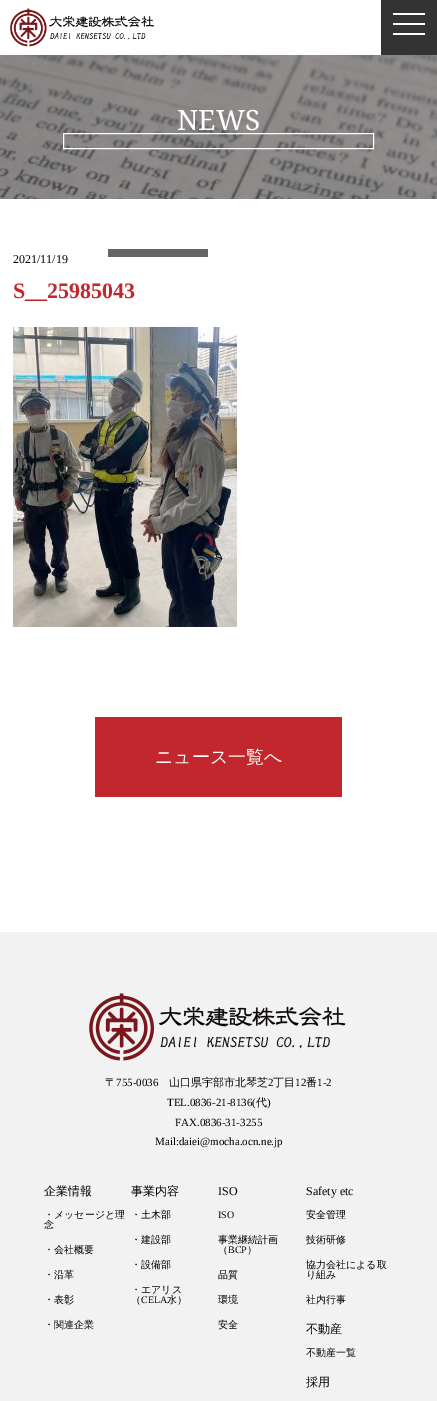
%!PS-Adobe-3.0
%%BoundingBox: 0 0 437 1401
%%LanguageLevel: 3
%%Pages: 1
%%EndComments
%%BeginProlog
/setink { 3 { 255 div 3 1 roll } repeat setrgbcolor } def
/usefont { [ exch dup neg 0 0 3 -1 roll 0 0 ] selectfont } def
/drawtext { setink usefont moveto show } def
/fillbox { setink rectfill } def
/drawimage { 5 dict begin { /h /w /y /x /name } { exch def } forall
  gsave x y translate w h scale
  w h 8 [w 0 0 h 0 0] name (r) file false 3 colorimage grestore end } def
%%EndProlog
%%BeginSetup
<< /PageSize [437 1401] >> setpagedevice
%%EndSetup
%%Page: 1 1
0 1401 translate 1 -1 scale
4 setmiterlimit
0 0 437 1401 255 255 255 fillbox
(assets/img1.rgb) 10 8 144 39 drawimage
381 0 56 55 51 51 51 fillbox
393 23 32 2 255 255 255 fillbox
393 13 32 2 255 255 255 fillbox
393 33 32 2 255 255 255 fillbox
(assets/img2.rgb) 0 55 437 144 drawimage
(NEWS) 177 130 /NotoSerif-Regular 28 255 255 255 drawtext
63.5 133.5 310 15 rectstroke
108 249 100 8 102 102 102 fillbox
(2021/11/19) 13 263 /LiberationSerif-Regular 12 0 0 0 drawtext
(S__25985043) 13 298 /LiberationSerif-Bold 22 193 39 45 drawtext
(assets/img3.rgb) 13 327 224 300 drawimage
95 717 247 80 193 39 45 fillbox
(ニュース一覧へ) 155 763 /WenQuanYiZenHei-Medium 18 255 255 255 drawtext
0 932 437 469 242 242 242 fillbox
(assets/img4.rgb) 89 993 257 68 drawimage
(〒) 105 1086 /WenQuanYiZenHei-Medium 11 0 0 0 drawtext
(755-0036) 116 1086 /LiberationSerif-Regular 11 0 0 0 drawtext
(山口県宇部市北琴芝) 169 1086 /WenQuanYiZenHei-Medium 11 0 0 0 drawtext
(2) 268 1086 /LiberationSerif-Regular 11 0 0 0 drawtext
(丁目) 273 1086 /WenQuanYiZenHei-Medium 11 0 0 0 drawtext
(12) 295 1086 /LiberationSerif-Regular 11 0 0 0 drawtext
(番) 306 1086 /WenQuanYiZenHei-Medium 11 0 0 0 drawtext
(1-2) 317 1086 /LiberationSerif-Regular 11 0 0 0 drawtext
(TEL.0836-21-8136\() 167 1106 /LiberationSerif-Regular 11 0 0 0 drawtext
(代) 256 1106 /WenQuanYiZenHei-Medium 11 0 0 0 drawtext
(\)) 267 1106 /LiberationSerif-Regular 11 0 0 0 drawtext
(FAX.0836-31-3255) 175 1126 /LiberationSerif-Regular 11 0 0 0 drawtext
(Mail:daiei@mocha.ocn.ne.jp) 155 1145 /LiberationSerif-Regular 11 0 0 0 drawtext
(企業情報) 44 1195 /WenQuanYiZenHei-Medium 12 0 0 0 drawtext
(・メッセージと理) 44 1218 /WenQuanYiZenHei-Medium 10 0 0 0 drawtext
(念) 44 1228 /WenQuanYiZenHei-Medium 10 0 0 0 drawtext
(・会社概要) 44 1253 /WenQuanYiZenHei-Medium 10 0 0 0 drawtext
(・沿革) 44 1278 /WenQuanYiZenHei-Medium 10 0 0 0 drawtext
(・表彰) 44 1303 /WenQuanYiZenHei-Medium 10 0 0 0 drawtext
(・関連企業) 44 1328 /WenQuanYiZenHei-Medium 10 0 0 0 drawtext
(事業内容) 131 1195 /WenQuanYiZenHei-Medium 12 0 0 0 drawtext
(・土木部) 131 1218 /WenQuanYiZenHei-Medium 10 0 0 0 drawtext
(・建設部) 131 1243 /WenQuanYiZenHei-Medium 10 0 0 0 drawtext
(・設備部) 131 1268 /WenQuanYiZenHei-Medium 10 0 0 0 drawtext
(・エアリス) 131 1293 /WenQuanYiZenHei-Medium 10 0 0 0 drawtext
(（) 131 1303 /WenQuanYiZenHei-Medium 10 0 0 0 drawtext
(CELA) 141 1303 /LiberationSerif-Regular 10 0 0 0 drawtext
(水）) 167 1303 /WenQuanYiZenHei-Medium 10 0 0 0 drawtext
(ISO) 218 1195 /LiberationSerif-Regular 12 0 0 0 drawtext
(ISO) 218 1218 /LiberationSerif-Regular 10 0 0 0 drawtext
(事業継続計画) 218 1243 /WenQuanYiZenHei-Medium 10 0 0 0 drawtext
(（) 218 1253 /WenQuanYiZenHei-Medium 10 0 0 0 drawtext
(BCP) 228 1253 /LiberationSerif-Regular 10 0 0 0 drawtext
(）) 247 1253 /WenQuanYiZenHei-Medium 10 0 0 0 drawtext
(品質) 218 1278 /WenQuanYiZenHei-Medium 10 0 0 0 drawtext
(環境) 218 1303 /WenQuanYiZenHei-Medium 10 0 0 0 drawtext
(安全) 218 1328 /WenQuanYiZenHei-Medium 10 0 0 0 drawtext
(Safety etc) 306 1195 /LiberationSerif-Regular 12 0 0 0 drawtext
(安全管理) 306 1218 /WenQuanYiZenHei-Medium 10 0 0 0 drawtext
(技術研修) 306 1243 /WenQuanYiZenHei-Medium 10 0 0 0 drawtext
(協力会社による取) 306 1268 /WenQuanYiZenHei-Medium 10 0 0 0 drawtext
(り組み) 306 1278 /WenQuanYiZenHei-Medium 10 0 0 0 drawtext
(社内行事) 306 1303 /WenQuanYiZenHei-Medium 10 0 0 0 drawtext
(不動産) 306 1333 /WenQuanYiZenHei-Medium 12 0 0 0 drawtext
(不動産一覧) 306 1356 /WenQuanYiZenHei-Medium 10 0 0 0 drawtext
(採用) 306 1386 /WenQuanYiZenHei-Medium 12 0 0 0 drawtext
showpage
%%EOF
